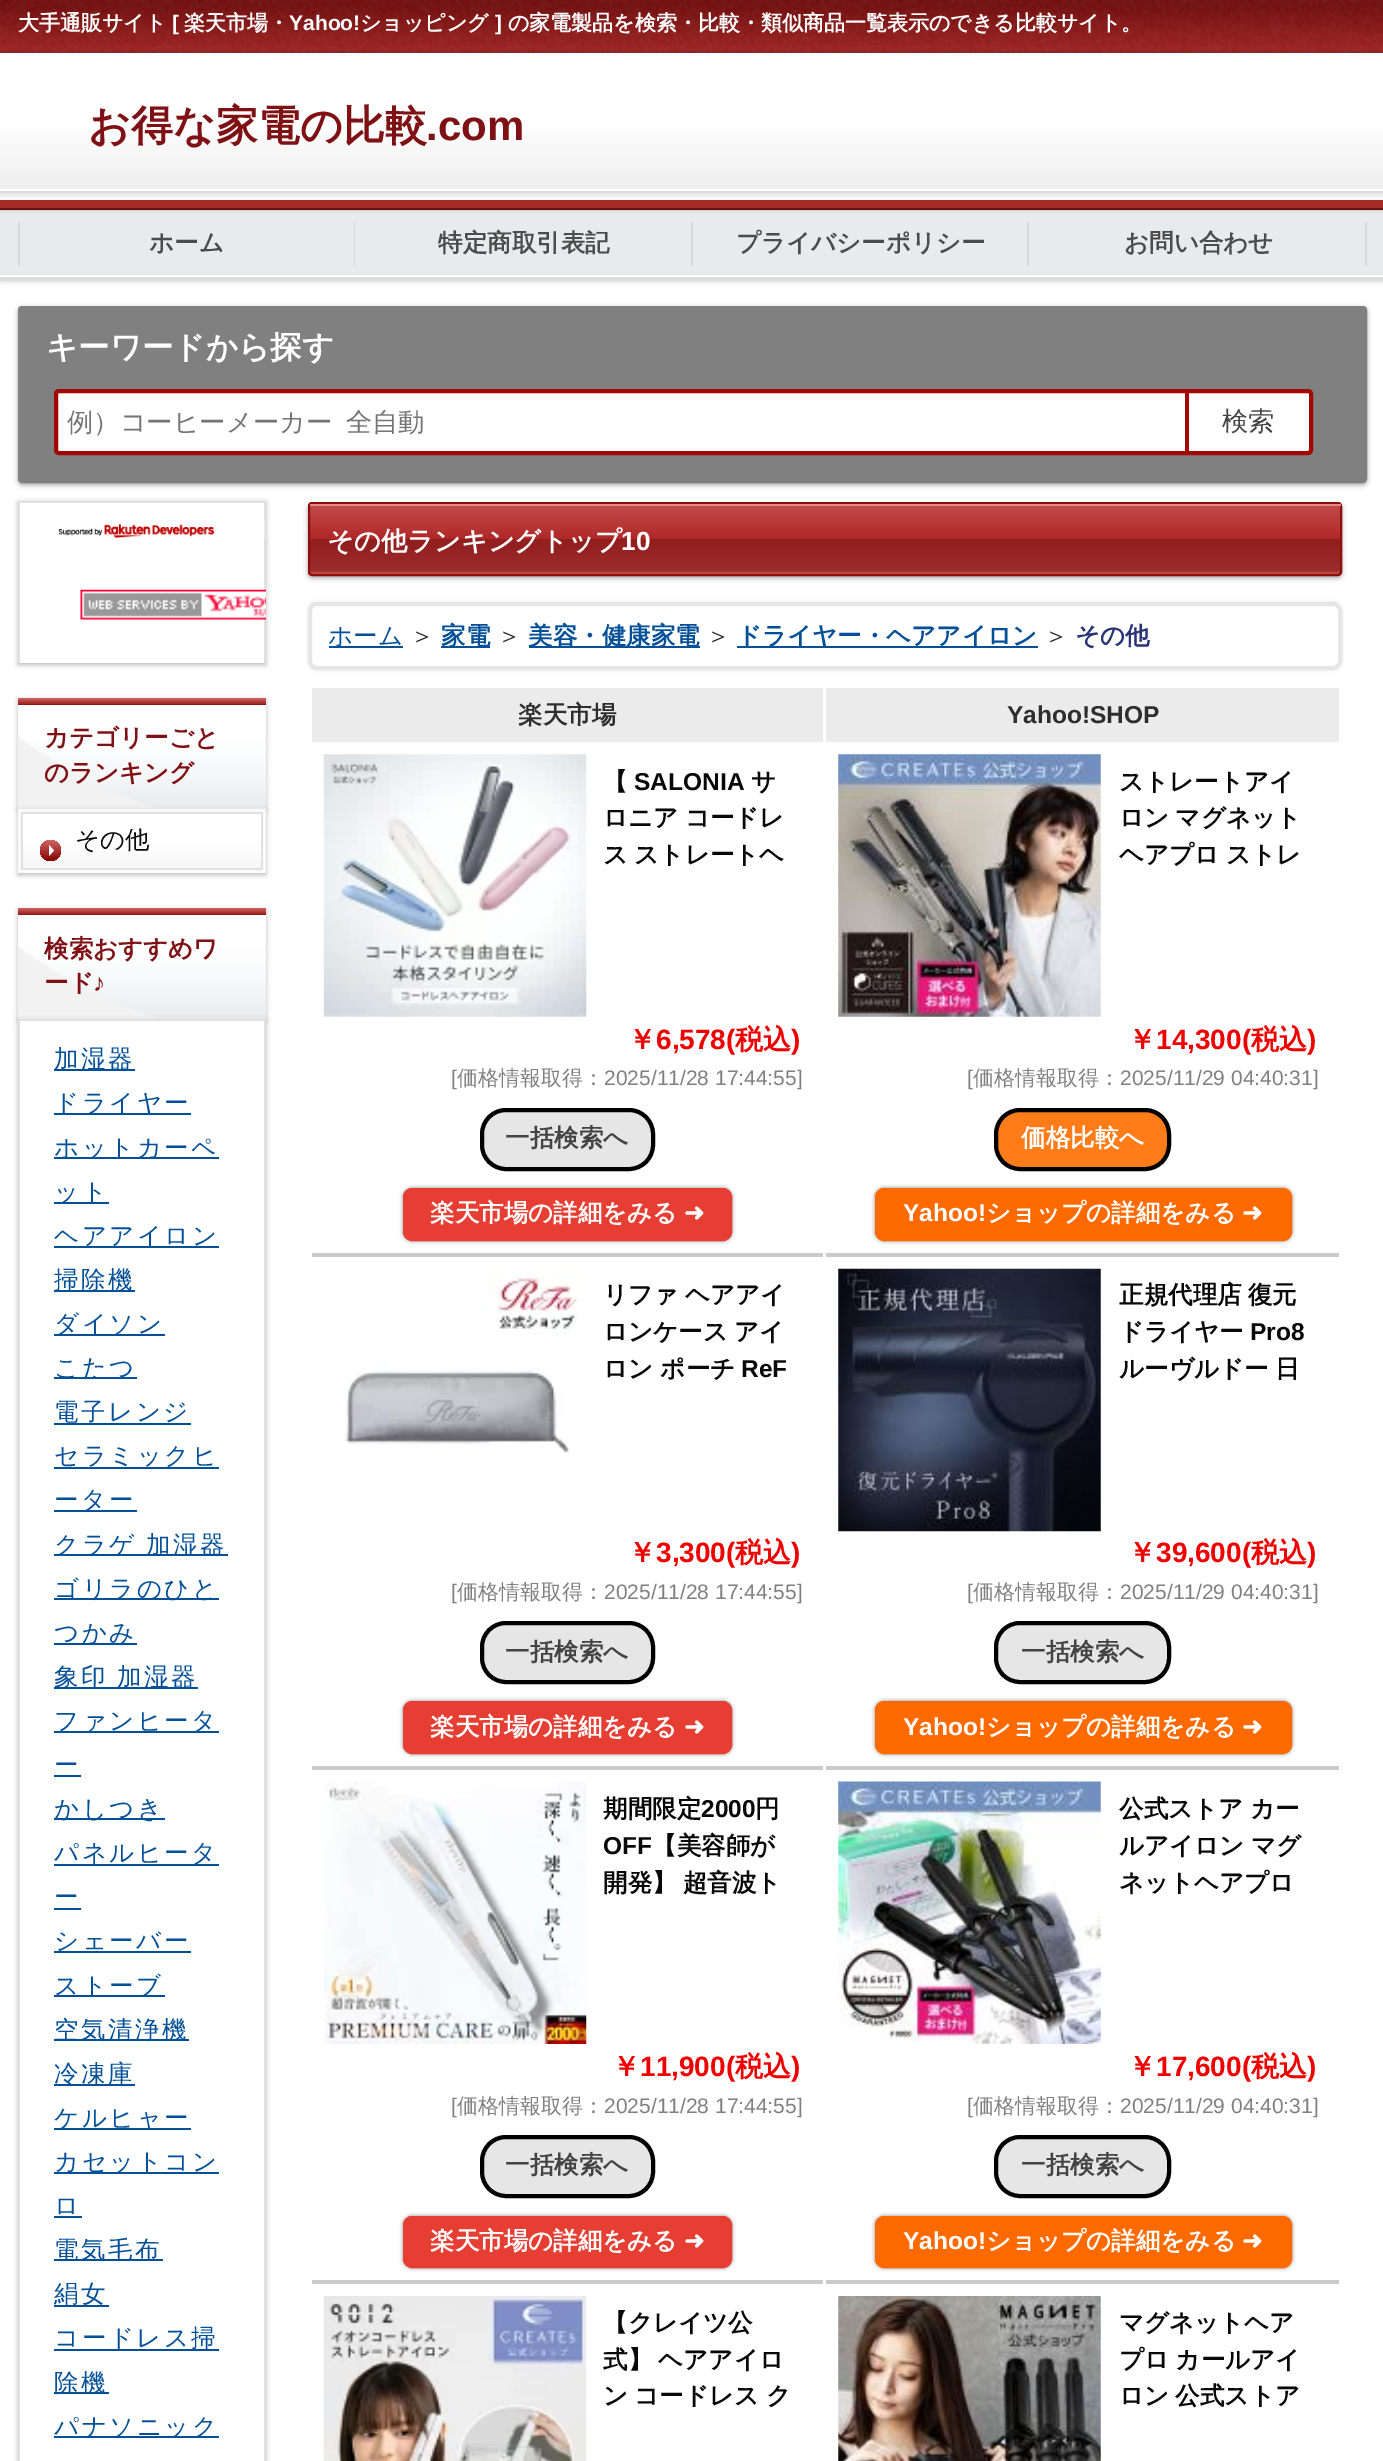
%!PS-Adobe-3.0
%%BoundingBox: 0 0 1383 2461
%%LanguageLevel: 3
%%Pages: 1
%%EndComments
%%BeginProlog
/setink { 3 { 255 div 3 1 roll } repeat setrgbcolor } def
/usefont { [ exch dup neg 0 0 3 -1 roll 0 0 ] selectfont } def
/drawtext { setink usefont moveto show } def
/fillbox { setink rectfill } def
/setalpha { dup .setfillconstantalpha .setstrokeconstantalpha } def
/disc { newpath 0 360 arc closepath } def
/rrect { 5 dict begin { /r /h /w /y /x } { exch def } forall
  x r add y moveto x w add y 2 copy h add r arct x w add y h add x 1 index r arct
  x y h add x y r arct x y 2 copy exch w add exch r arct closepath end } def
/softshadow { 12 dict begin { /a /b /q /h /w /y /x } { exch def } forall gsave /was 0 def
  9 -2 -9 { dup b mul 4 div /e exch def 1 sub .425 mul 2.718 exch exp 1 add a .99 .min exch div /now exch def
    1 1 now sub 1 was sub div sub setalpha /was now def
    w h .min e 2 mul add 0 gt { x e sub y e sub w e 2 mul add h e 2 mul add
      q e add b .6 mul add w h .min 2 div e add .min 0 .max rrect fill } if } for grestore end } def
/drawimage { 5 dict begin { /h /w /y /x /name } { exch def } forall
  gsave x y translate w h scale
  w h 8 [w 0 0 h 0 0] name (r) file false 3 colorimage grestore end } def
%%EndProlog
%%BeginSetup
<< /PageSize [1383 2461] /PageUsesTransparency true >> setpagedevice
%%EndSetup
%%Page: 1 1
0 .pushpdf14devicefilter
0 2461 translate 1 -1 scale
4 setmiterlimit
0 0 1383 2461 255 255 255 fillbox
217 217 217 setink
0 210 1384 72 0 2.5 0.9 softshadow
gsave 0 208 moveto 1383 208 lineto 1383 210 lineto 0 210 lineto closepath clip newpath
<< /ShadingType 2 /ColorSpace /DeviceRGB /Coords [692 0 692 210] /Extend [true true] /Function << /FunctionType 2 /Domain [0 1] /C0 [0.584 0.086 0.078] /C1 [0.447 0 0] /N 1 >> >> shfill grestore
(assets/img1.rgb) 0 46 1383 163 drawimage
(assets/img2.rgb) 0 0 1383 46 drawimage
(大手通販サイト) 18 30 /WenQuanYiZenHei-Bold 21 255 255 255 drawtext
([) 172 30 /LiberationSans-Bold 21 255 255 255 drawtext
(楽天市場・) 184 30 /WenQuanYiZenHei-Bold 21 255 255 255 drawtext
(Yahoo!) 289 30 /LiberationSans-Bold 21 255 255 255 drawtext
(ショッピング) 360 30 /WenQuanYiZenHei-Bold 21 255 255 255 drawtext
(]) 495 30 /LiberationSans-Bold 21 255 255 255 drawtext
(の家電製品を検索・比較・類似商品一覧表示のできる比較サイト。) 508 30 /WenQuanYiZenHei-Bold 21 255 255 255 drawtext
0 210 1383 65 233 234 236 fillbox
51 51 51 setink
0 53 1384 155 0 2.5 0.6 softshadow
0 53 1383 138 255 255 255 fillbox
0 200 1383 8 164 43 40 fillbox
gsave 0 130 moveto 1383 130 lineto 1383 189 lineto 0 189 lineto closepath clip newpath
<< /ShadingType 2 /ColorSpace /DeviceRGB /Coords [692 119 692 189] /Extend [true true] /Function << /FunctionType 2 /Domain [0 1] /C0 [1 1 1] /C1 [0.937 0.937 0.937] /N 1 >> >> shfill grestore
(お得な家電の比較) 88 140 /WenQuanYiZenHei-Bold 42 127 16 20 drawtext
(.com) 426 140 /LiberationSans-Bold 42 127 16 20 drawtext
gsave 0 193 moveto 1383 193 lineto 1383 200 lineto 0 200 lineto closepath clip newpath
<< /ShadingType 2 /ColorSpace /DeviceRGB /Coords [692 192 692 200] /Extend [true true] /Function << /FunctionType 2 /Domain [0 1] /C0 [0.898 0.898 0.898] /C1 [0.98 0.98 0.98] /N 1 >> >> shfill grestore
0 191 1383 2 221 221 221 fillbox
18 222 2 44 215 216 217 fillbox
(ホーム) 149 251 /WenQuanYiZenHei-Bold 24.5 76 76 76 drawtext
354 222 1 44 215 216 217 fillbox
(特定商取引表記) 438 251 /WenQuanYiZenHei-Bold 24.5 76 76 76 drawtext
691 222 2 44 215 216 217 fillbox
(プライバシーポリシー) 736 251 /WenQuanYiZenHei-Bold 24.5 76 76 76 drawtext
1027 222 2 44 215 216 217 fillbox
(お問い合わせ) 1124 251 /WenQuanYiZenHei-Bold 24.5 76 76 76 drawtext
1365 222 2 44 215 216 217 fillbox
0 275 1383 2 255 255 255 fillbox
0 277 1383 4 220 220 220 fillbox
128 128 128 setink
18 308 1349 177 4 2.5 0.7 softshadow
19 307 1347 175 3 rrect gsave fill grestore
2 setlinewidth
stroke
(キーワードから探す) 46 358 /WenQuanYiZenHei-Bold 31.5 255 255 255 drawtext
56 391 1255 62 3 rrect gsave fill grestore
162 7 0 setink
4 setlinewidth
stroke
/WenQuanYiZenHei-Medium 26.25 usefont
117 117 117 setink
67 431 moveto -1 0 32 (例）コーヒーメーカー  全自動) widthshow
1185 392 4 60 162 7 0 fillbox
(検索) 1222 430 /WenQuanYiZenHei-Medium 26.25 68 68 68 drawtext
gsave
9 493 moveto 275 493 lineto 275 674 lineto 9 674 lineto closepath 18 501 moveto 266 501 lineto 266 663 lineto 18 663 lineto closepath eoclip newpath
153 153 153 setink
18 502 248 163 0 2.5 0.65 softshadow
grestore
18 501 248 2 225 225 225 fillbox
264 501 2 162 225 225 225 fillbox
18 501 2 162 225 225 225 fillbox
(assets/img3.rgb) 58 520 207 19 drawimage
(assets/img4.rgb) 80 589 186 31 drawimage
153 153 153 setink
18 700 248 110 0 2.5 0.65 softshadow
18 705 248 104 255 255 255 fillbox
gsave 18 698 moveto 266 698 lineto 266 705 lineto 18 705 lineto closepath clip newpath
<< /ShadingType 2 /ColorSpace /DeviceRGB /Coords [142 698 142 705] /Extend [true true] /Function << /FunctionType 2 /Domain [0 1] /C0 [0.82 0.4 0.396] /C1 [0.573 0.086 0.086] /N 1 >> >> shfill grestore
(assets/img5.rgb) 18 736 248 73 drawimage
(カテゴリーごと) 44 746 /WenQuanYiZenHei-Bold 24.5 127 16 20 drawtext
(のランキング) 44 781 /WenQuanYiZenHei-Bold 24.5 127 16 20 drawtext
153 153 153 setink
18 810 248 65 0 2.5 0.65 softshadow
18 809 248 64 250 250 250 fillbox
21 812 242 2 225 225 225 fillbox
261 812 2 58 225 225 225 fillbox
21 812 2 58 225 225 225 fillbox
23 868 238 2 225 225 225 fillbox
gsave 23 814 moveto 261 814 lineto 261 868 lineto 23 868 lineto closepath clip newpath
<< /ShadingType 2 /ColorSpace /DeviceRGB /Coords [142 814 142 868] /Extend [true true] /Function << /FunctionType 3 /Domain [0 1] /Functions [<< /FunctionType 2 /Domain [0 1] /C0 [1 1 1] /C1 [1 1 1] /N 1 >> << /FunctionType 2 /Domain [0 1] /C0 [1 1 1] /C1 [0.969 0.969 0.969] /N 1 >>] /Bounds [0.5] /Encode [0 1 0 1] >> >> shfill grestore
gsave 50.5 850.5 10.5 disc clip newpath
<< /ShadingType 2 /ColorSpace /DeviceRGB /Coords [51 840 51 861] /Extend [true true] /Function << /FunctionType 2 /Domain [0 1] /C0 [0.82 0.4 0.396] /C1 [0.51 0.004 0] /N 1 >> >> shfill grestore
(その他) 75 848 /WenQuanYiZenHei-Medium 24.5 8 8 8 drawtext
255 255 255 setink
49 856 moveto 49 845 lineto 54 850.5 lineto closepath fill
153 153 153 setink
18 910 248 110 0 2.5 0.65 softshadow
18 915 248 104 255 255 255 fillbox
gsave 18 908 moveto 266 908 lineto 266 915 lineto 18 915 lineto closepath clip newpath
<< /ShadingType 2 /ColorSpace /DeviceRGB /Coords [142 908 142 915] /Extend [true true] /Function << /FunctionType 2 /Domain [0 1] /C0 [0.82 0.4 0.396] /C1 [0.573 0.086 0.086] /N 1 >> >> shfill grestore
(assets/img5.rgb) 18 946 248 73 drawimage
(検索おすすめワ) 44 957 /WenQuanYiZenHei-Bold 24.5 127 16 20 drawtext
(ード) 44 991 /WenQuanYiZenHei-Bold 24.5 127 16 20 drawtext
(♪) 93 991 /LiberationSans-Bold 24.5 127 16 20 drawtext
153 153 153 setink
18 1020 248 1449 0 2.5 0.65 softshadow
20 1021 244 1440 255 255 255 fillbox
18 1019 248 2 225 225 225 fillbox
264 1019 2 1442 225 225 225 fillbox
18 1019 2 1442 225 225 225 fillbox
54 1069 81 2 3 80 153 fillbox
/WenQuanYiZenHei-Medium 24.5 usefont
54 1067 moveto 2.5 0 (加湿器) ashow
54 1113 137 2 3 80 153 fillbox
54 1111 moveto 2.5 0 (ドライヤー) ashow
54 1157 165 2 3 80 153 fillbox
54 1156 moveto 2.5 0 (ホットカーペ) ashow
54 1202 55 2 3 80 153 fillbox
54 1200 moveto 2.5 0 (ット) ashow
54 1246 165 2 3 80 153 fillbox
54 1244 moveto 2.5 0 (ヘアアイロン) ashow
54 1290 81 2 3 80 153 fillbox
54 1288 moveto 2.5 0 (掃除機) ashow
54 1334 111 2 3 80 153 fillbox
54 1332 moveto 2.5 0 (ダイソン) ashow
54 1377 83 2 3 80 153 fillbox
54 1376 moveto 2.5 0 (こたつ) ashow
54 1420 moveto 2.5 0 (電子レンジ) ashow
54 1423 137 2 3 80 153 fillbox
54 1467 165 2 3 80 153 fillbox
54 1464 moveto 2.5 0 (セラミックヒ) ashow
54 1510 83 2 3 80 153 fillbox
54 1508 moveto 2.5 0 (ーター) ashow
54 1554 174 2 3 80 153 fillbox
54 1553 moveto -1 0 32 2.5 0 (クラゲ 加湿器) awidthshow
54 1598 165 2 3 80 153 fillbox
54 1597 moveto 2.5 0 (ゴリラのひと) ashow
54 1643 83 2 3 80 153 fillbox
54 1641 moveto 2.5 0 (つかみ) ashow
54 1687 144 2 3 80 153 fillbox
54 1685 moveto -1 0 32 2.5 0 (象印 加湿器) awidthshow
54 1731 165 2 3 80 153 fillbox
54 1729 moveto 2.5 0 (ファンヒータ) ashow
54 1773 moveto 2.5 0 (ー) ashow
54 1775 27 2 3 80 153 fillbox
54 1818 111 2 3 80 153 fillbox
54 1817 moveto 2.5 0 (かしつき) ashow
54 1864 165 2 3 80 153 fillbox
54 1861 moveto 2.5 0 (パネルヒータ) ashow
54 1905 moveto 2.5 0 (ー) ashow
54 1908 27 2 3 80 153 fillbox
54 1951 137 2 3 80 153 fillbox
54 1949 moveto 2.5 0 (シェーバー) ashow
54 1995 111 2 3 80 153 fillbox
54 1994 moveto 2.5 0 (ストーブ) ashow
54 2039 135 2 3 80 153 fillbox
54 2038 moveto 2.5 0 (空気清浄機) ashow
54 2084 81 2 3 80 153 fillbox
54 2082 moveto 2.5 0 (冷凍庫) ashow
54 2128 137 2 3 80 153 fillbox
54 2126 moveto 2.5 0 (ケルヒャー) ashow
54 2172 165 2 3 80 153 fillbox
54 2170 moveto 2.5 0 (カセットコン) ashow
54 2214 moveto 2.5 0 (ロ) ashow
54 2216 28 2 3 80 153 fillbox
54 2259 109 2 3 80 153 fillbox
54 2258 moveto 2.5 0 (電気毛布) ashow
54 2305 55 2 3 80 153 fillbox
54 2302 moveto 2.5 0 (絹女) ashow
54 2349 165 2 3 80 153 fillbox
54 2346 moveto 2.5 0 (コードレス掃) ashow
54 2392 55 2 3 80 153 fillbox
54 2391 moveto 2.5 0 (除機) ashow
54 2436 165 2 3 80 153 fillbox
54 2435 moveto 2.5 0 (パナソニック) ashow
gsave
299 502 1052 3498 rectclip
128 128 128 setink
308 504 1034 74 4 2.5 0.7 softshadow
grestore
gsave
308 502 1034 74 4 rrect clip newpath
gsave 308 504 moveto 1342 504 lineto 1342 574 lineto 308 574 lineto closepath clip newpath
<< /ShadingType 2 /ColorSpace /DeviceRGB /Coords [825 504 825 574] /Extend [true true] /Function << /FunctionType 3 /Domain [0 1] /Functions [<< /FunctionType 2 /Domain [0 1] /C0 [0.765 0.302 0.302] /C1 [0.69 0.157 0.157] /N 1 >> << /FunctionType 2 /Domain [0 1] /C0 [0.573 0.114 0.114] /C1 [0.604 0.176 0.173] /N 1 >> << /FunctionType 2 /Domain [0 1] /C0 [0.604 0.176 0.173] /C1 [0.765 0.302 0.302] /N 1 >>] /Bounds [0.5 0.95] /Encode [0 1 0 1 0 1] >> >> shfill grestore
grestore
144 14 12 setink
2 setlinewidth
309 503 1032 72 3 rrect stroke
310 504 1031 2 224 139 137 fillbox
(その他ランキングトップ) 327 550 /WenQuanYiZenHei-Bold 26.25 255 255 255 drawtext
(10) 621 550 /LiberationSans-Bold 26.25 255 255 255 drawtext
gsave
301 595 moveto 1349 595 lineto 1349 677 lineto 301 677 lineto closepath 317 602 moveto 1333 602 lineto 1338 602 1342 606 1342 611 curveto 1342 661 lineto 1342 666 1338 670 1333 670 curveto 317 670 lineto 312 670 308 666 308 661 curveto 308 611 lineto 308 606 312 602 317 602 curveto closepath eoclip newpath
230 230 230 setink
308 602 1034 68 9 2 1 softshadow
grestore
230 230 230 setink
4 setlinewidth
310 604 1030 64 7 rrect stroke
329 646 74 2 3 80 153 fillbox
(ホーム) 328 644 /WenQuanYiZenHei-Medium 24.5 3 80 153 drawtext
(＞) 410 644 /WenQuanYiZenHei-Medium 24.5 46 46 46 drawtext
441 646 49 2 3 80 153 fillbox
(家電) 441 644 /WenQuanYiZenHei-Bold 24.5 3 80 153 drawtext
(＞) 497 644 /WenQuanYiZenHei-Medium 24.5 46 46 46 drawtext
529 646 171 2 3 80 153 fillbox
(美容・健康家電) 528 644 /WenQuanYiZenHei-Bold 24.5 3 80 153 drawtext
(＞) 706 644 /WenQuanYiZenHei-Medium 24.5 46 46 46 drawtext
737 646 301 2 3 80 153 fillbox
(ドライヤー・ヘアアイロン) 737 644 /WenQuanYiZenHei-Bold 24.5 3 80 153 drawtext
(＞) 1044 644 /WenQuanYiZenHei-Medium 24.5 46 46 46 drawtext
(その他) 1075 644 /WenQuanYiZenHei-Bold 24.5 39 51 118 drawtext
312 688 511 54 235 235 235 fillbox
(楽天市場) 518 723 /WenQuanYiZenHei-Bold 24.5 46 46 46 drawtext
312 1253 511 4 204 203 203 fillbox
(assets/img6.rgb) 323 754 264 263 drawimage
(【) 603 790 /WenQuanYiZenHei-Bold 24.5 8 8 8 drawtext
(SALONIA) 634 790 /LiberationSans-Bold 24.5 8 8 8 drawtext
(サ) 751 790 /WenQuanYiZenHei-Bold 24.5 8 8 8 drawtext
603 826 moveto -1 0 32 (ロニア コードレ) widthshow
603 863 moveto -1 0 32 (ス ストレートヘ) widthshow
(￥) 628 1049 /WenQuanYiZenHei-Bold 28 238 0 0 drawtext
(6,578\() 656 1049 /LiberationSans-Bold 28 238 0 0 drawtext
(税込) 735 1049 /WenQuanYiZenHei-Bold 28 238 0 0 drawtext
(\)) 791 1049 /LiberationSans-Bold 28 238 0 0 drawtext
([) 451 1085 /LiberationSans-Regular 21 128 128 128 drawtext
(価格情報取得：) 457 1085 /WenQuanYiZenHei-Medium 21 128 128 128 drawtext
(2025/11/28 17:44:55]) 604 1085 /LiberationSans-Regular 21 128 128 128 drawtext
230 230 230 setink
482 1110 171 59 24 rrect gsave fill grestore
0 0 0 setink
stroke
(一括検索へ) 505 1146 /WenQuanYiZenHei-Bold 24.5 68 68 68 drawtext
128 128 128 setink
403 1188 329 53 9 2 1 softshadow
230 62 50 setink
405 1190 325 49 7 rrect gsave fill grestore
stroke
(楽天市場の詳細をみる) 430 1221 /WenQuanYiZenHei-Bold 24.5 255 255 255 drawtext
(➜) 684 1221 /DejaVuSans-Bold 24.5 255 255 255 drawtext
312 1766 511 4 204 203 203 fillbox
(assets/img7.rgb) 345 1269 234 188 drawimage
/WenQuanYiZenHei-Bold 24.5 usefont
8 8 8 setink
603 1303 moveto -1 0 32 (リファ ヘアアイ) widthshow
603 1340 moveto -1 0 32 (ロンケース アイ) widthshow
(ロン ポーチ) 603 1377 /WenQuanYiZenHei-Bold 24.5 8 8 8 drawtext
(ReF) 741 1377 /LiberationSans-Bold 24.5 8 8 8 drawtext
(￥) 628 1562 /WenQuanYiZenHei-Bold 28 238 0 0 drawtext
(3,300\() 656 1562 /LiberationSans-Bold 28 238 0 0 drawtext
(税込) 735 1562 /WenQuanYiZenHei-Bold 28 238 0 0 drawtext
(\)) 791 1562 /LiberationSans-Bold 28 238 0 0 drawtext
([) 451 1599 /LiberationSans-Regular 21 128 128 128 drawtext
(価格情報取得：) 457 1599 /WenQuanYiZenHei-Medium 21 128 128 128 drawtext
(2025/11/28 17:44:55]) 604 1599 /LiberationSans-Regular 21 128 128 128 drawtext
230 230 230 setink
482 1623 171 59 24 rrect gsave fill grestore
0 0 0 setink
stroke
(一括検索へ) 505 1660 /WenQuanYiZenHei-Bold 24.5 68 68 68 drawtext
128 128 128 setink
403 1701 329 53 9 2 1 softshadow
230 62 50 setink
405 1703 325 49 7 rrect gsave fill grestore
stroke
(楽天市場の詳細をみる) 430 1735 /WenQuanYiZenHei-Bold 24.5 255 255 255 drawtext
(➜) 684 1735 /DejaVuSans-Bold 24.5 255 255 255 drawtext
312 2280 511 4 204 203 203 fillbox
(assets/img8.rgb) 324 1781 263 263 drawimage
(期間限定) 603 1817 /WenQuanYiZenHei-Bold 24.5 8 8 8 drawtext
(2000) 701 1817 /LiberationSans-Bold 24.5 8 8 8 drawtext
(円) 755 1817 /WenQuanYiZenHei-Bold 24.5 8 8 8 drawtext
(OFF) 603 1854 /LiberationSans-Bold 24.5 8 8 8 drawtext
(【美容師が) 652 1854 /WenQuanYiZenHei-Bold 24.5 8 8 8 drawtext
603 1891 moveto -1 0 32 (開発】 超音波ト) widthshow
(￥) 612 2076 /WenQuanYiZenHei-Bold 28 238 0 0 drawtext
(11,900\() 640 2076 /LiberationSans-Bold 28 238 0 0 drawtext
(税込) 735 2076 /WenQuanYiZenHei-Bold 28 238 0 0 drawtext
(\)) 791 2076 /LiberationSans-Bold 28 238 0 0 drawtext
([) 451 2113 /LiberationSans-Regular 21 128 128 128 drawtext
(価格情報取得：) 457 2113 /WenQuanYiZenHei-Medium 21 128 128 128 drawtext
(2025/11/28 17:44:55]) 604 2113 /LiberationSans-Regular 21 128 128 128 drawtext
230 230 230 setink
482 2137 171 59 24 rrect gsave fill grestore
0 0 0 setink
stroke
(一括検索へ) 505 2173 /WenQuanYiZenHei-Bold 24.5 68 68 68 drawtext
128 128 128 setink
403 2216 329 52 9 2 1 softshadow
230 62 50 setink
405 2218 325 48 7 rrect gsave fill grestore
stroke
(楽天市場の詳細をみる) 430 2249 /WenQuanYiZenHei-Bold 24.5 255 255 255 drawtext
(➜) 684 2249 /DejaVuSans-Bold 24.5 255 255 255 drawtext
(assets/img9.rgb) 323 2296 264 165 drawimage
(【クレイツ公) 603 2331 /WenQuanYiZenHei-Bold 24.5 8 8 8 drawtext
603 2368 moveto -1 0 32 (式】 ヘアアイロ) widthshow
603 2404 moveto -1 0 32 (ン コードレス ク) widthshow
826 688 513 54 235 235 235 fillbox
(Yahoo!SHOP) 1007 723 /LiberationSans-Bold 24.5 46 46 46 drawtext
826 1253 513 4 204 203 203 fillbox
(assets/img10.rgb) 838 754 263 263 drawimage
(ストレートアイ) 1119 790 /WenQuanYiZenHei-Bold 24.5 8 8 8 drawtext
1119 826 moveto -1 0 32 (ロン マグネット) widthshow
1119 863 moveto -1 0 32 (ヘアプロ ストレ) widthshow
(￥) 1128 1049 /WenQuanYiZenHei-Bold 28 238 0 0 drawtext
(14,300\() 1156 1049 /LiberationSans-Bold 28 238 0 0 drawtext
(税込) 1251 1049 /WenQuanYiZenHei-Bold 28 238 0 0 drawtext
(\)) 1307 1049 /LiberationSans-Bold 28 238 0 0 drawtext
([) 967 1085 /LiberationSans-Regular 21 128 128 128 drawtext
(価格情報取得：) 973 1085 /WenQuanYiZenHei-Medium 21 128 128 128 drawtext
(2025/11/29 04:40:31]) 1120 1085 /LiberationSans-Regular 21 128 128 128 drawtext
255 124 25 setink
996 1110 173 59 24 rrect gsave fill grestore
0 0 0 setink
stroke
(価格比較へ) 1021 1146 /WenQuanYiZenHei-Bold 24.5 255 255 255 drawtext
128 128 128 setink
875 1188 417 53 9 2 1 softshadow
255 106 0 setink
877 1190 413 49 7 rrect gsave fill grestore
stroke
(Yahoo!) 903 1221 /LiberationSans-Bold 24.5 255 255 255 drawtext
(ショップの詳細をみる) 986 1221 /WenQuanYiZenHei-Bold 24.5 255 255 255 drawtext
(➜) 1242 1221 /DejaVuSans-Bold 24.5 255 255 255 drawtext
826 1766 513 4 204 203 203 fillbox
(assets/img11.rgb) 838 1268 263 264 drawimage
/WenQuanYiZenHei-Bold 24.5 usefont
8 8 8 setink
1119 1303 moveto -1 0 32 (正規代理店 復元) widthshow
(ドライヤー) 1119 1340 /WenQuanYiZenHei-Bold 24.5 8 8 8 drawtext
(Pro8) 1250 1340 /LiberationSans-Bold 24.5 8 8 8 drawtext
/WenQuanYiZenHei-Bold 24.5 usefont
1119 1377 moveto -1 0 32 (ルーヴルドー 日) widthshow
(￥) 1128 1562 /WenQuanYiZenHei-Bold 28 238 0 0 drawtext
(39,600\() 1156 1562 /LiberationSans-Bold 28 238 0 0 drawtext
(税込) 1251 1562 /WenQuanYiZenHei-Bold 28 238 0 0 drawtext
(\)) 1307 1562 /LiberationSans-Bold 28 238 0 0 drawtext
([) 967 1599 /LiberationSans-Regular 21 128 128 128 drawtext
(価格情報取得：) 973 1599 /WenQuanYiZenHei-Medium 21 128 128 128 drawtext
(2025/11/29 04:40:31]) 1120 1599 /LiberationSans-Regular 21 128 128 128 drawtext
230 230 230 setink
996 1623 173 59 24 rrect gsave fill grestore
0 0 0 setink
stroke
(一括検索へ) 1021 1660 /WenQuanYiZenHei-Bold 24.5 68 68 68 drawtext
128 128 128 setink
875 1701 417 53 9 2 1 softshadow
255 106 0 setink
877 1703 413 49 7 rrect gsave fill grestore
stroke
(Yahoo!) 903 1735 /LiberationSans-Bold 24.5 255 255 255 drawtext
(ショップの詳細をみる) 986 1735 /WenQuanYiZenHei-Bold 24.5 255 255 255 drawtext
(➜) 1242 1735 /DejaVuSans-Bold 24.5 255 255 255 drawtext
826 2280 513 4 204 203 203 fillbox
(assets/img12.rgb) 838 1781 263 263 drawimage
/WenQuanYiZenHei-Bold 24.5 usefont
8 8 8 setink
1119 1817 moveto -1 0 32 (公式ストア カー) widthshow
1119 1854 moveto -1 0 32 (ルアイロン マグ) widthshow
(ネットヘアプロ) 1119 1891 /WenQuanYiZenHei-Bold 24.5 8 8 8 drawtext
(￥) 1128 2076 /WenQuanYiZenHei-Bold 28 238 0 0 drawtext
(17,600\() 1156 2076 /LiberationSans-Bold 28 238 0 0 drawtext
(税込) 1251 2076 /WenQuanYiZenHei-Bold 28 238 0 0 drawtext
(\)) 1307 2076 /LiberationSans-Bold 28 238 0 0 drawtext
([) 967 2113 /LiberationSans-Regular 21 128 128 128 drawtext
(価格情報取得：) 973 2113 /WenQuanYiZenHei-Medium 21 128 128 128 drawtext
(2025/11/29 04:40:31]) 1120 2113 /LiberationSans-Regular 21 128 128 128 drawtext
230 230 230 setink
996 2137 173 59 24 rrect gsave fill grestore
0 0 0 setink
stroke
(一括検索へ) 1021 2173 /WenQuanYiZenHei-Bold 24.5 68 68 68 drawtext
128 128 128 setink
875 2216 417 52 9 2 1 softshadow
255 106 0 setink
877 2218 413 48 7 rrect gsave fill grestore
stroke
(Yahoo!) 903 2249 /LiberationSans-Bold 24.5 255 255 255 drawtext
(ショップの詳細をみる) 986 2249 /WenQuanYiZenHei-Bold 24.5 255 255 255 drawtext
(➜) 1242 2249 /DejaVuSans-Bold 24.5 255 255 255 drawtext
(assets/img13.rgb) 838 2296 263 165 drawimage
(マグネットヘア) 1119 2331 /WenQuanYiZenHei-Bold 24.5 8 8 8 drawtext
1119 2368 moveto -1 0 32 (プロ カールアイ) widthshow
1119 2404 moveto -1 0 32 (ロン 公式ストア) widthshow
.poppdf14devicefilter showpage
%%EOF
